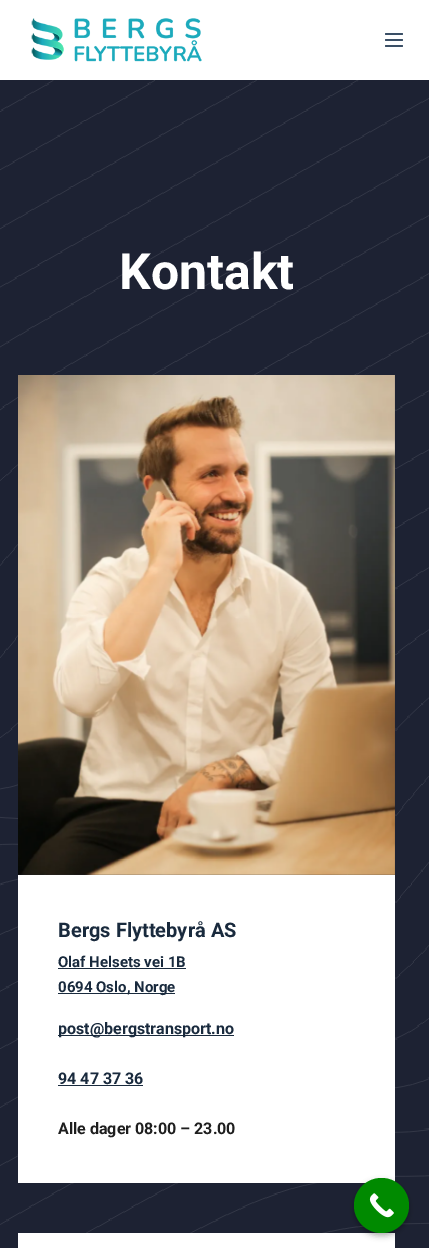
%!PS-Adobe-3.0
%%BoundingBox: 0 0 429 1248
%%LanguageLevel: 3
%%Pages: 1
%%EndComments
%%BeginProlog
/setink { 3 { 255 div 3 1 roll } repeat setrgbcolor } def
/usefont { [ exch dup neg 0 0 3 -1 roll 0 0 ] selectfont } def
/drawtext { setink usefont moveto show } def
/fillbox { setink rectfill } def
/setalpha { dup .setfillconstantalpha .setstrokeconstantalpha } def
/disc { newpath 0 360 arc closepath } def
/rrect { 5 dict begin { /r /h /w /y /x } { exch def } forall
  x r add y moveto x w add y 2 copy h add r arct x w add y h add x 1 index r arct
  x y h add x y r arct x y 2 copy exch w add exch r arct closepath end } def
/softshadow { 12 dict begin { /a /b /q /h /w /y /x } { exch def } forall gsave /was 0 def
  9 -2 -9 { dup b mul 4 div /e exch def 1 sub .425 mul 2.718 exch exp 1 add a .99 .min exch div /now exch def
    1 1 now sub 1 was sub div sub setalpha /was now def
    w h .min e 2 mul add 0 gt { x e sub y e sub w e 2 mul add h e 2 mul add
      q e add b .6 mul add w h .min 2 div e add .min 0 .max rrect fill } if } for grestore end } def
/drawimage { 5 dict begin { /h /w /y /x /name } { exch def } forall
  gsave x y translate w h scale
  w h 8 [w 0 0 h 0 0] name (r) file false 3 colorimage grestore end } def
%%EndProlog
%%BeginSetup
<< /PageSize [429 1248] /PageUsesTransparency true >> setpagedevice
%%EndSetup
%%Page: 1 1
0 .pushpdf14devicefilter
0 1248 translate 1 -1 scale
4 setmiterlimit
0 0 429 1248 29 34 51 fillbox
0 0 429 80 255 255 255 fillbox
(assets/img1.rgb) 31 18 171 44 drawimage
58 79 102 setink
385 33 18 2 1 rrect fill
385 39 18 2 1 rrect fill
385 45 18 2 1 rrect fill
(assets/img2.rgb) 0 80 429 1153 drawimage
(Kontakt) 119 289 /Roboto-Bold 50 255 255 255 drawtext
(assets/img3.rgb) 18 375 377 500 drawimage
18 875 377 308 255 255 255 fillbox
(Bergs Flyttebyrå AS) 58 937 /Roboto-Bold 20 25 42 61 drawtext
(Olaf Helsets vei 1B) 58 967 /Roboto-Bold 15 25 42 61 drawtext
58 968 128 1 25 42 61 fillbox
58 993 117 1 25 42 61 fillbox
(0694 Oslo, Norge) 58 992 /Roboto-Bold 15 25 42 61 drawtext
58 1035 176 1 25 42 61 fillbox
(post@bergstransport.no) 58 1034 /Roboto-Bold 16 25 42 61 drawtext
(94 47 37 36) 58 1084 /Roboto-Bold 16 25 42 61 drawtext
58 1085 85 1 25 42 61 fillbox
(Alle dager 08:00 – 23.00) 58 1134 /Roboto-Bold 16 30 30 30 drawtext
18 1233 377 15 255 255 255 fillbox
0 0 0 setink
354 1181 55 55 27.5 3 0.3 softshadow
0 138 0 setink
381.5 1205.5 27.5 disc fill
(assets/img4.rgb) 369 1193 25 25 drawimage
.poppdf14devicefilter showpage
%%EOF
